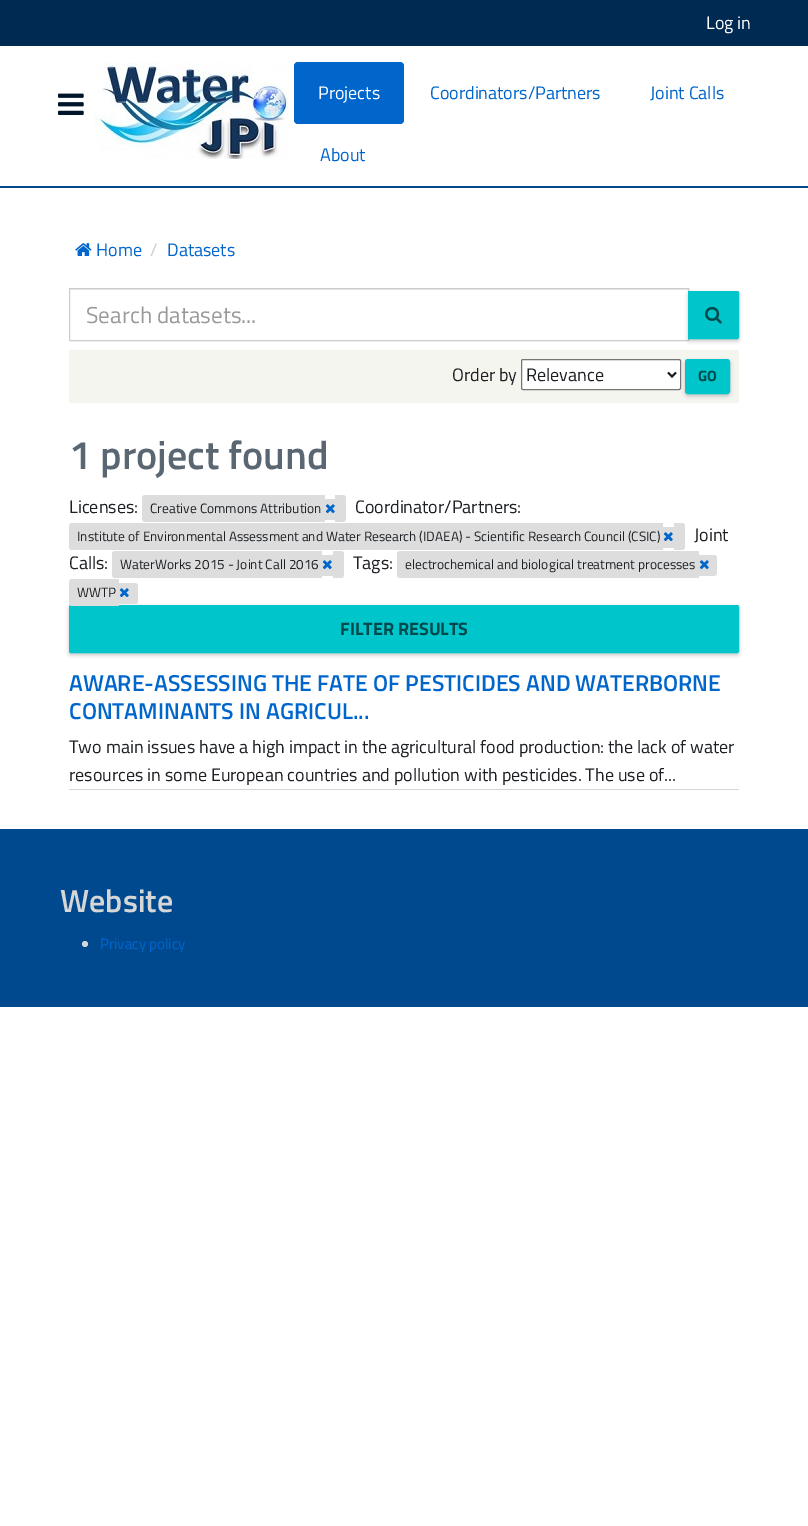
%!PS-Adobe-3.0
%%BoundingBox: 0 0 808 1526
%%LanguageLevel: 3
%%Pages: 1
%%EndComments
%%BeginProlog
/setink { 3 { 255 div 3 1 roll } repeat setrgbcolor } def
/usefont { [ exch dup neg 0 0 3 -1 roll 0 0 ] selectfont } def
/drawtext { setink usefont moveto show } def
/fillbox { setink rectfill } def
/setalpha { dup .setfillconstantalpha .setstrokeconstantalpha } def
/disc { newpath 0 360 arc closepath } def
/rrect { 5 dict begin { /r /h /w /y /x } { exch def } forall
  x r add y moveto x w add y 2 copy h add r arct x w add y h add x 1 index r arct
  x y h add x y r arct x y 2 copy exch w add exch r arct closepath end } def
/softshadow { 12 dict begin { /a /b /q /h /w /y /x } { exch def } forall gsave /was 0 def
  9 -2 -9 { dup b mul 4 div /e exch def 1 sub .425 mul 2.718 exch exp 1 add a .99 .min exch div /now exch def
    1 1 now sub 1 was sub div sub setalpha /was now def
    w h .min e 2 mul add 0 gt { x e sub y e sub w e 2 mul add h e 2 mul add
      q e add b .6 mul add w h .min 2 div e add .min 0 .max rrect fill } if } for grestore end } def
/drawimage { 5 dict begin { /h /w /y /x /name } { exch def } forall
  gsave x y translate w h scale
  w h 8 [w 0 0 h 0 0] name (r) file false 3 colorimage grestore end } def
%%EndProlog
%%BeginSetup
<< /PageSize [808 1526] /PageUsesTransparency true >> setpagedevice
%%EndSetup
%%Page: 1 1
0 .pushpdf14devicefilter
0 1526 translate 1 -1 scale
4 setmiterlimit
0 0 808 1526 255 255 255 fillbox
0 0 808 46 0 42 82 fillbox
(Log in) 706 29 /TitilliumWeb-Regular 18 255 255 255 drawtext
0 186 808 2 0 73 143 fillbox
(assets/img1.rgb) 58 93 26 22 drawimage
(assets/img2.rgb) 94 62 196 97 drawimage
0 102 204 setink
294 62 110 62 4 rrect fill
(Projects) 318 99 /TitilliumWeb-Regular 18 255 255 255 drawtext
(Coordinators/Partners) 430 99 /TitilliumWeb-Regular 18 0 102 204 drawtext
(Joint Calls) 650 99 /TitilliumWeb-Regular 18 0 102 204 drawtext
(About) 320 161 /TitilliumWeb-Regular 18 0 102 204 drawtext
(assets/img3.rgb) 75 243 17 13 drawimage
(Home) 96 256 /TitilliumWeb-Regular 18 0 102 204 drawtext
(/) 150 256 /TitilliumWeb-Regular 18 204 204 204 drawtext
(Datasets) 167 256 /TitilliumWeb-Regular 18 0 102 204 drawtext
70 289 618 1 236 236 236 fillbox
204 204 204 setink
69.5 288.5 619 52 rectstroke
(Search datasets...) 86 323 /TitilliumWeb-Regular 23 153 153 153 drawtext
28 32 36 setink
688 293 51 48 2 2 0.26 softshadow
0 197 202 setink
688.5 291.5 moveto 737 291.5 lineto 738 291.5 738.5 292 738.5 293 curveto 738.5 337 lineto 738.5 338 738 338.5 737 338.5 curveto 688.5 338.5 lineto closepath gsave fill grestore
stroke
(assets/img4.rgb) 705 306 17 18 drawimage
69 350 670 53 245 245 240 fillbox
(Order by) 452 381 /TitilliumWeb-Regular 18 28 32 36 drawtext
255 255 255 setink
521.5 359.5 159 30 1.5 rrect gsave fill grestore
118 118 118 setink
stroke
28 32 36 setink
2 setlinewidth
668 372.5 moveto 672 376.5 lineto 676 372.5 lineto stroke
(Relevance) 526 381 /TitilliumWeb-Regular 18 28 32 36 drawtext
685 361 45 35 3 2 0.26 softshadow
0 197 202 setink
685.5 359.5 44 34 2.5 rrect gsave fill grestore
1 setlinewidth
stroke
(GO) 698 381 /TitilliumWeb-Bold 15 0 74 77 drawtext
(1 project found) 69 469 /TitilliumWeb-SemiBold 40 90 103 114 drawtext
(Licenses:) 69 513 /TitilliumWeb-Regular 18 28 32 36 drawtext
221 221 221 setink
145 495 moveto 325 495 lineto 325 522 lineto 145 522 lineto 143.5 522 142 520.5 142 519 curveto 142 498 lineto 142 496.5 143.5 495 145 495 curveto closepath fill
325 499 10 21 221 221 221 fillbox
335 495 moveto 343 495 lineto 344.5 495 346 496.5 346 498 curveto 346 519 lineto 346 520.5 344.5 522 343 522 curveto 335 522 lineto closepath fill
(Creative Commons Attribution) 150 513 /TitilliumWeb-Regular 13.5 28 32 36 drawtext
(assets/img5.rgb) 325 504 10 10 drawimage
(Coordinator/Partners:) 355 513 /TitilliumWeb-Regular 18 28 32 36 drawtext
221 221 221 setink
72 523 moveto 663 523 lineto 663 550 lineto 72 550 lineto 70.5 550 69 548.5 69 547 curveto 69 526 lineto 69 524.5 70.5 523 72 523 curveto closepath fill
663 527 11 21 221 221 221 fillbox
674 523 moveto 682 523 lineto 683.5 523 685 524.5 685 526 curveto 685 547 lineto 685 548.5 683.5 550 682 550 curveto 674 550 lineto closepath fill
(Institute of Environmental Assessment and Water Research \(IDAEA\) - Scientific Research Council \(CSIC\)) 77 541 /TitilliumWeb-Regular 13.5 28 32 36 drawtext
(assets/img5.rgb) 663 532 10 10 drawimage
(Joint) 694 541 /TitilliumWeb-Regular 18 28 32 36 drawtext
(Calls:) 69 569 /TitilliumWeb-Regular 18 28 32 36 drawtext
221 221 221 setink
115 551 moveto 322 551 lineto 322 578 lineto 115 578 lineto 113.5 578 112 576.5 112 575 curveto 112 554 lineto 112 552.5 113.5 551 115 551 curveto closepath fill
322 555 11 21 221 221 221 fillbox
333 551 moveto 341 551 lineto 342.5 551 344 552.5 344 554 curveto 344 575 lineto 344 576.5 342.5 578 341 578 curveto 333 578 lineto closepath fill
(WaterWorks 2015 - Joint Call 2016) 120 569 /TitilliumWeb-Regular 13.5 28 32 36 drawtext
(assets/img5.rgb) 322 560 10 10 drawimage
(Tags:) 353 569 /TitilliumWeb-Regular 18 28 32 36 drawtext
221 221 221 setink
400 551 moveto 699 551 lineto 699 578 lineto 400 578 lineto 398.5 578 397 576.5 397 575 curveto 397 554 lineto 397 552.5 398.5 551 400 551 curveto closepath fill
699 555 moveto 714 555 lineto 715.5 555 717 556.5 717 558 curveto 717 573 lineto 717 574.5 715.5 576 714 576 curveto 699 576 lineto closepath fill
(electrochemical and biological treatment processes) 405 569 /TitilliumWeb-Regular 13.5 28 32 36 drawtext
(assets/img5.rgb) 699 560 10 10 drawimage
69 607 670 48 2 2 0.26 softshadow
0 197 202 setink
69.5 605.5 669 47 1.5 rrect gsave fill grestore
stroke
221 221 221 setink
72 579 moveto 119 579 lineto 119 606 lineto 72 606 lineto 70.5 606 69 604.5 69 603 curveto 69 582 lineto 69 580.5 70.5 579 72 579 curveto closepath fill
119 583 moveto 135 583 lineto 136.5 583 138 584.5 138 586 curveto 138 601 lineto 138 602.5 136.5 604 135 604 curveto 119 604 lineto closepath fill
(WWTP) 77 597 /TitilliumWeb-Regular 13.5 28 32 36 drawtext
(assets/img5.rgb) 119 588 10 10 drawimage
(FILTER RESULTS) 340 635 /TitilliumWeb-Bold 18 0 74 77 drawtext
69 789 670 1 214 214 214 fillbox
(AWARE-ASSESSING THE FATE OF PESTICIDES AND WATERBORNE) 69 691 /TitilliumWeb-SemiBold 23 0 102 204 drawtext
(CONTAMINANTS IN AGRICUL...) 69 719 /TitilliumWeb-SemiBold 23 0 102 204 drawtext
(Two main issues have a high impact in the agricultural food production: the lack of water) 69 753 /TitilliumWeb-Regular 18 28 32 36 drawtext
(resources in some European countries and pollution with pesticides. The use of...) 69 781 /TitilliumWeb-Regular 18 28 32 36 drawtext
0 829 808 178 0 73 143 fillbox
(Website) 60 912 /TitilliumWeb-SemiBold 32 214 214 214 drawtext
85 944 3 disc fill
(Privacy policy) 100 949 /TitilliumWeb-Regular 15 0 102 204 drawtext
.poppdf14devicefilter showpage
%%EOF
